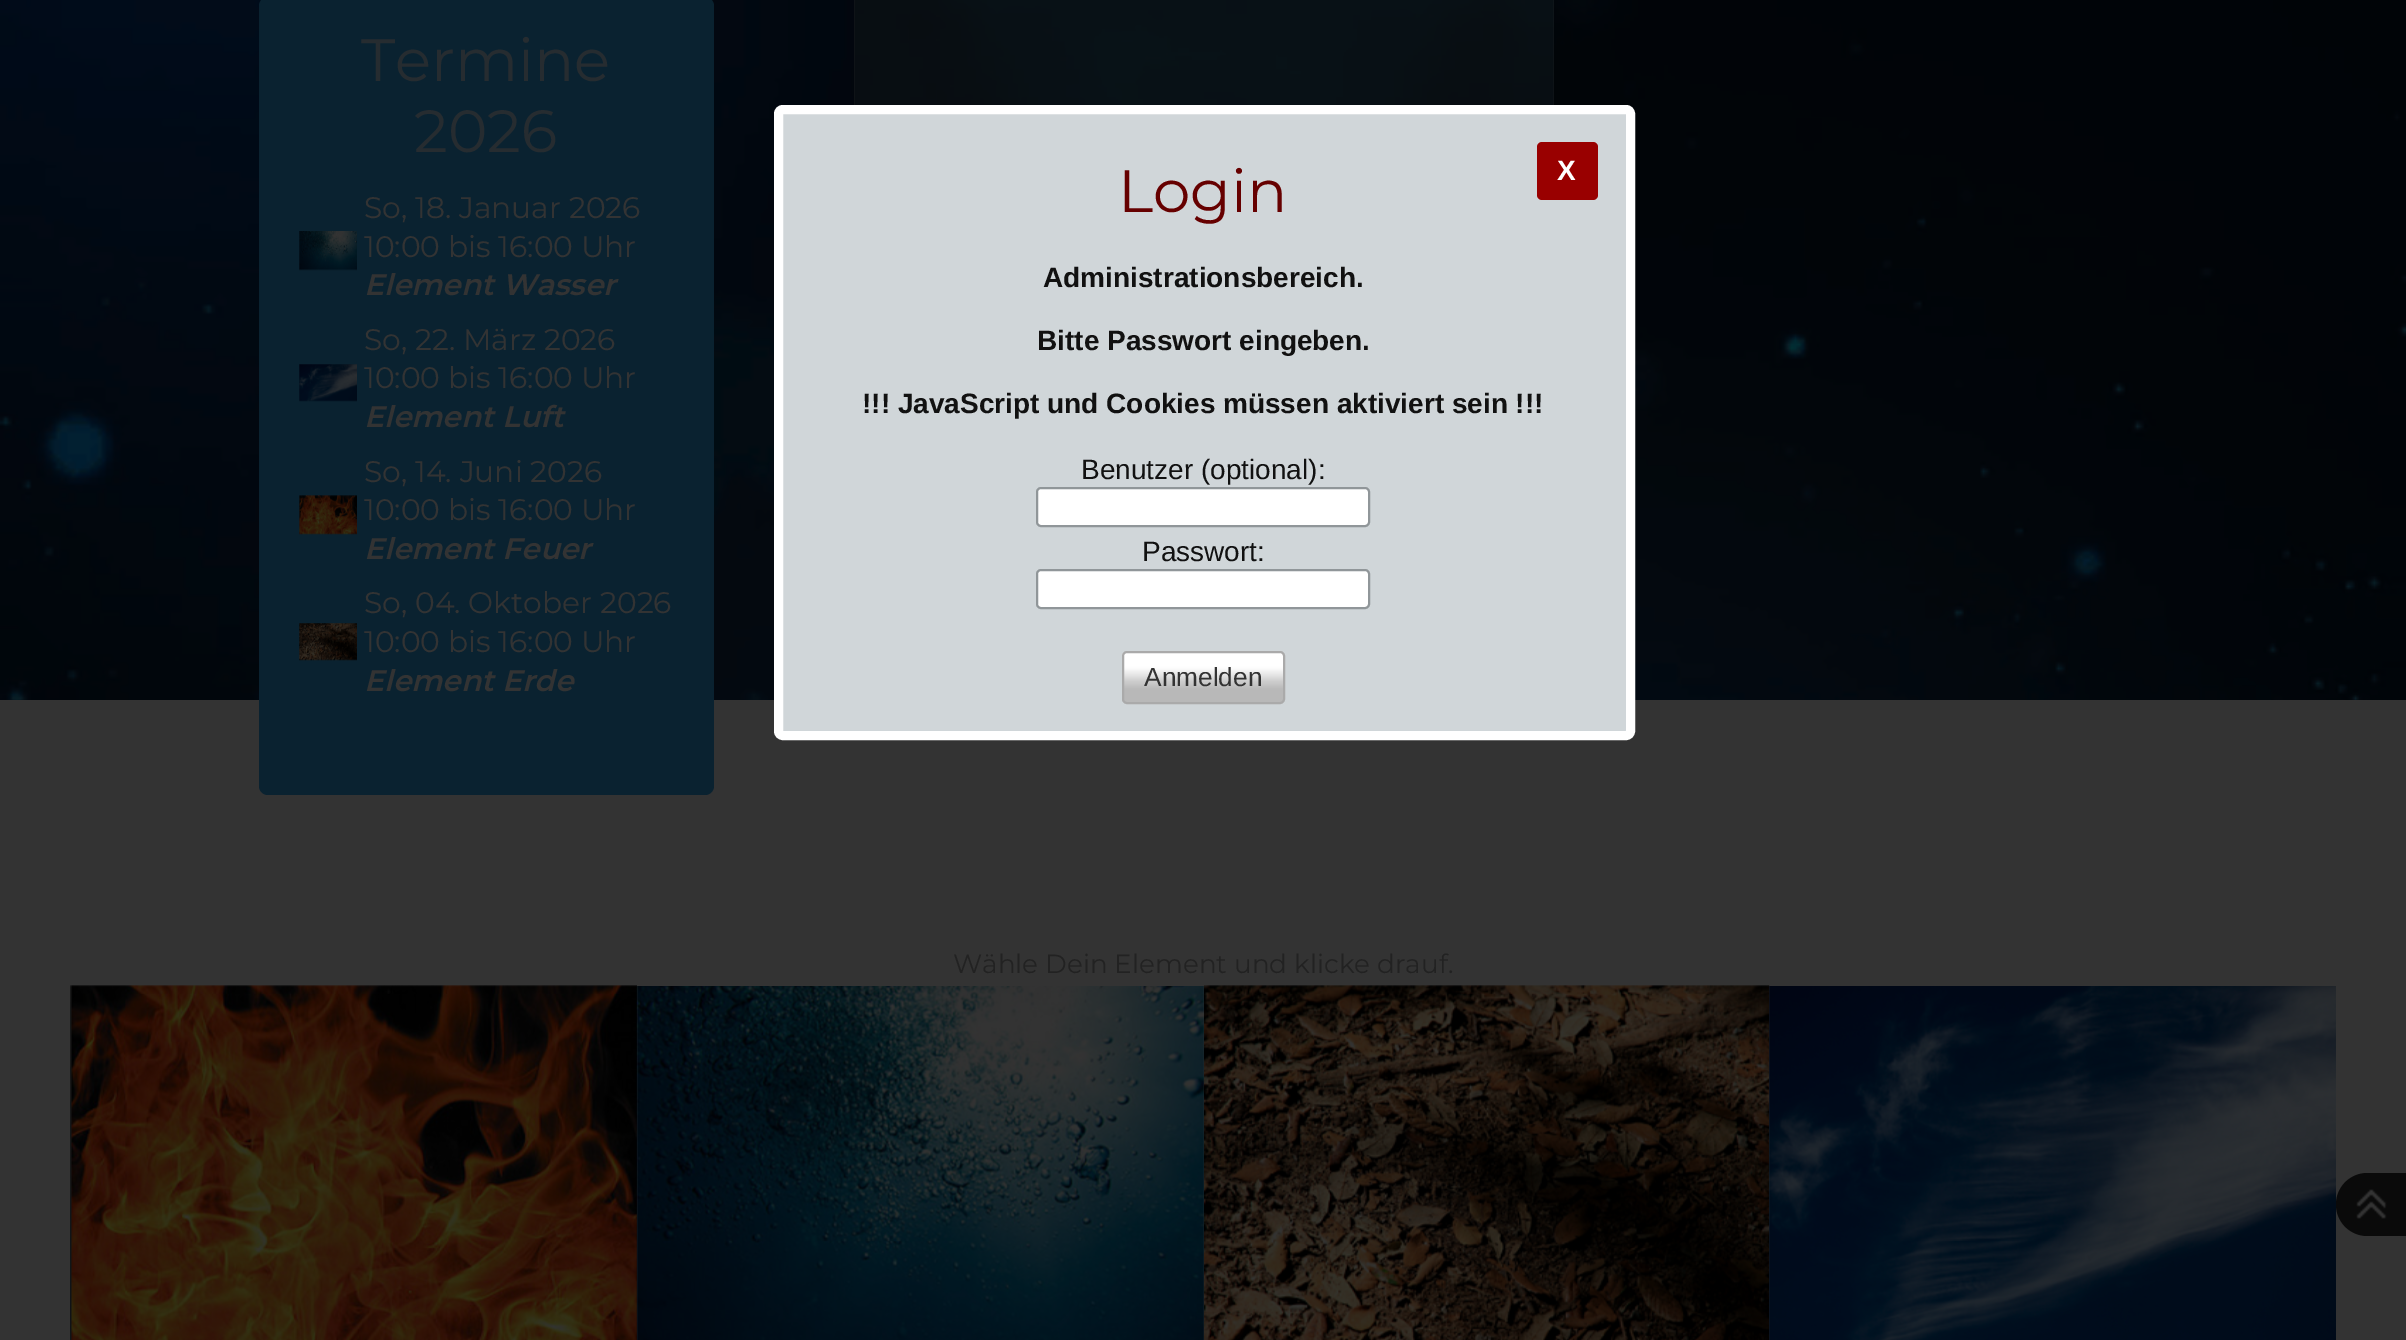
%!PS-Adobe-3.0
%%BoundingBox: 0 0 2406 1340
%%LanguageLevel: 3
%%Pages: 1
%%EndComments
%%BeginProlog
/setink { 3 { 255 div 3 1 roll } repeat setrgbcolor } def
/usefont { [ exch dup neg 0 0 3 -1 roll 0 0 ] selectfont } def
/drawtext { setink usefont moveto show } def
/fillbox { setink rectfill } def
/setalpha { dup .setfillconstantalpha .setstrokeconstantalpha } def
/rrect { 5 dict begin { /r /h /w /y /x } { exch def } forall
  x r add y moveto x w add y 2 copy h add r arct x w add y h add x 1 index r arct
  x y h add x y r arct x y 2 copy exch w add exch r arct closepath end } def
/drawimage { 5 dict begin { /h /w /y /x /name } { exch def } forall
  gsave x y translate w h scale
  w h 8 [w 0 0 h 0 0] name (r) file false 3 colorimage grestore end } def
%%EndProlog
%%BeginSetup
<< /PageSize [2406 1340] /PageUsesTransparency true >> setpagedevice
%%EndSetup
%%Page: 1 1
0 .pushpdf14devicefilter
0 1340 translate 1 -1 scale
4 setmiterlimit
0 0 2406 1340 51 51 51 fillbox
(assets/img1.rgb) 0 0 2406 700 drawimage
0.8 setalpha
854 0 700 105 51 51 51 fillbox
1 setalpha
(assets/img2.rgb) 853 0 701 105 drawimage
10 34 48 setink
259 -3 455 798 9 rrect fill
(Termine) 361 81 /Montserrat-Regular 59.5 38 44 48 drawtext
(2026) 414 152 /Montserrat-Regular 59.5 38 44 48 drawtext
(assets/img3.rgb) 299 231 58 40 drawimage
(So, 18. Januar 2026) 364 218 /Montserrat-Regular 29.75 51 51 51 drawtext
(10:00 bis 16:00 Uhr) 364 257 /Montserrat-Regular 29.75 51 51 51 drawtext
(Element Wasser) 364 295 /Montserrat-SemiBoldItalic 29.75 51 51 51 drawtext
(assets/img4.rgb) 299 364 58 38 drawimage
(So, 22. März 2026) 364 350 /Montserrat-Regular 29.75 51 51 51 drawtext
(10:00 bis 16:00 Uhr) 364 388 /Montserrat-Regular 29.75 51 51 51 drawtext
(Element Luft) 364 427 /Montserrat-SemiBoldItalic 29.75 51 51 51 drawtext
(assets/img5.rgb) 299 495 58 40 drawimage
(So, 14. Juni 2026) 364 482 /Montserrat-Regular 29.75 51 51 51 drawtext
(10:00 bis 16:00 Uhr) 364 520 /Montserrat-Regular 29.75 51 51 51 drawtext
(Element Feuer) 364 559 /Montserrat-SemiBoldItalic 29.75 51 51 51 drawtext
(assets/img6.rgb) 299 623 58 38 drawimage
(So, 04. Oktober 2026) 364 613 /Montserrat-Regular 29.75 51 51 51 drawtext
(10:00 bis 16:00 Uhr) 364 652 /Montserrat-Regular 29.75 51 51 51 drawtext
(Element Erde) 364 691 /Montserrat-SemiBoldItalic 29.75 51 51 51 drawtext
208 214 217 setink
778.5 109.5 852 626 4.5 rrect gsave fill grestore
255 255 255 setink
9 setlinewidth
stroke
(Login) 1118 212 /Montserrat-Regular 59.5 102 0 0 drawtext
153 0 0 setink
1537 142 61 58 5 rrect fill
(X) 1557 180 /LiberationSans-Bold 28 255 255 255 drawtext
(Administrationsbereich.) 1043 287 /LiberationSans-Bold 28 17 17 17 drawtext
(Bitte Passwort eingeben.) 1037 350 /LiberationSans-Bold 28 17 17 17 drawtext
(!!! JavaScript und Cookies müssen aktiviert sein !!!) 862 413 /LiberationSans-Bold 28 17 17 17 drawtext
(Benutzer \(optional\):) 1081 479 /LiberationSans-Regular 28 17 17 17 drawtext
255 255 255 setink
1037 488 332 38 4 rrect gsave fill grestore
144 150 153 setink
2 setlinewidth
stroke
(Passwort:) 1142 561 /LiberationSans-Regular 28 17 17 17 drawtext
255 255 255 setink
1037 570 332 38 4 rrect gsave fill grestore
144 150 153 setink
stroke
(assets/img7.rgb) 1122 652 163 52 drawimage
170 170 170 setink
1123 652 161 51 4 rrect stroke
(Anmelden) 1144 686 /LiberationSans-Regular 26.25 51 51 51 drawtext
(Wähle Dein Element und klicke drauf.) 953 973 /Montserrat-Regular 26.25 34 34 34 drawtext
(assets/img8.rgb) 70 985 567 355 drawimage
(assets/img9.rgb) 636 986 569 354 drawimage
(assets/img10.rgb) 1204 985 566 355 drawimage
(assets/img11.rgb) 1769 986 567 354 drawimage
10 10 10 setink
2367.5 1173 moveto 2406 1173 lineto 2406 1236 lineto 2367.5 1236 lineto 2350 1236 2336 1222 2336 1204.5 curveto 2336 1187 2350 1173 2367.5 1173 curveto closepath fill
(assets/img12.rgb) 2356 1189 31 30 drawimage
.poppdf14devicefilter showpage
%%EOF
